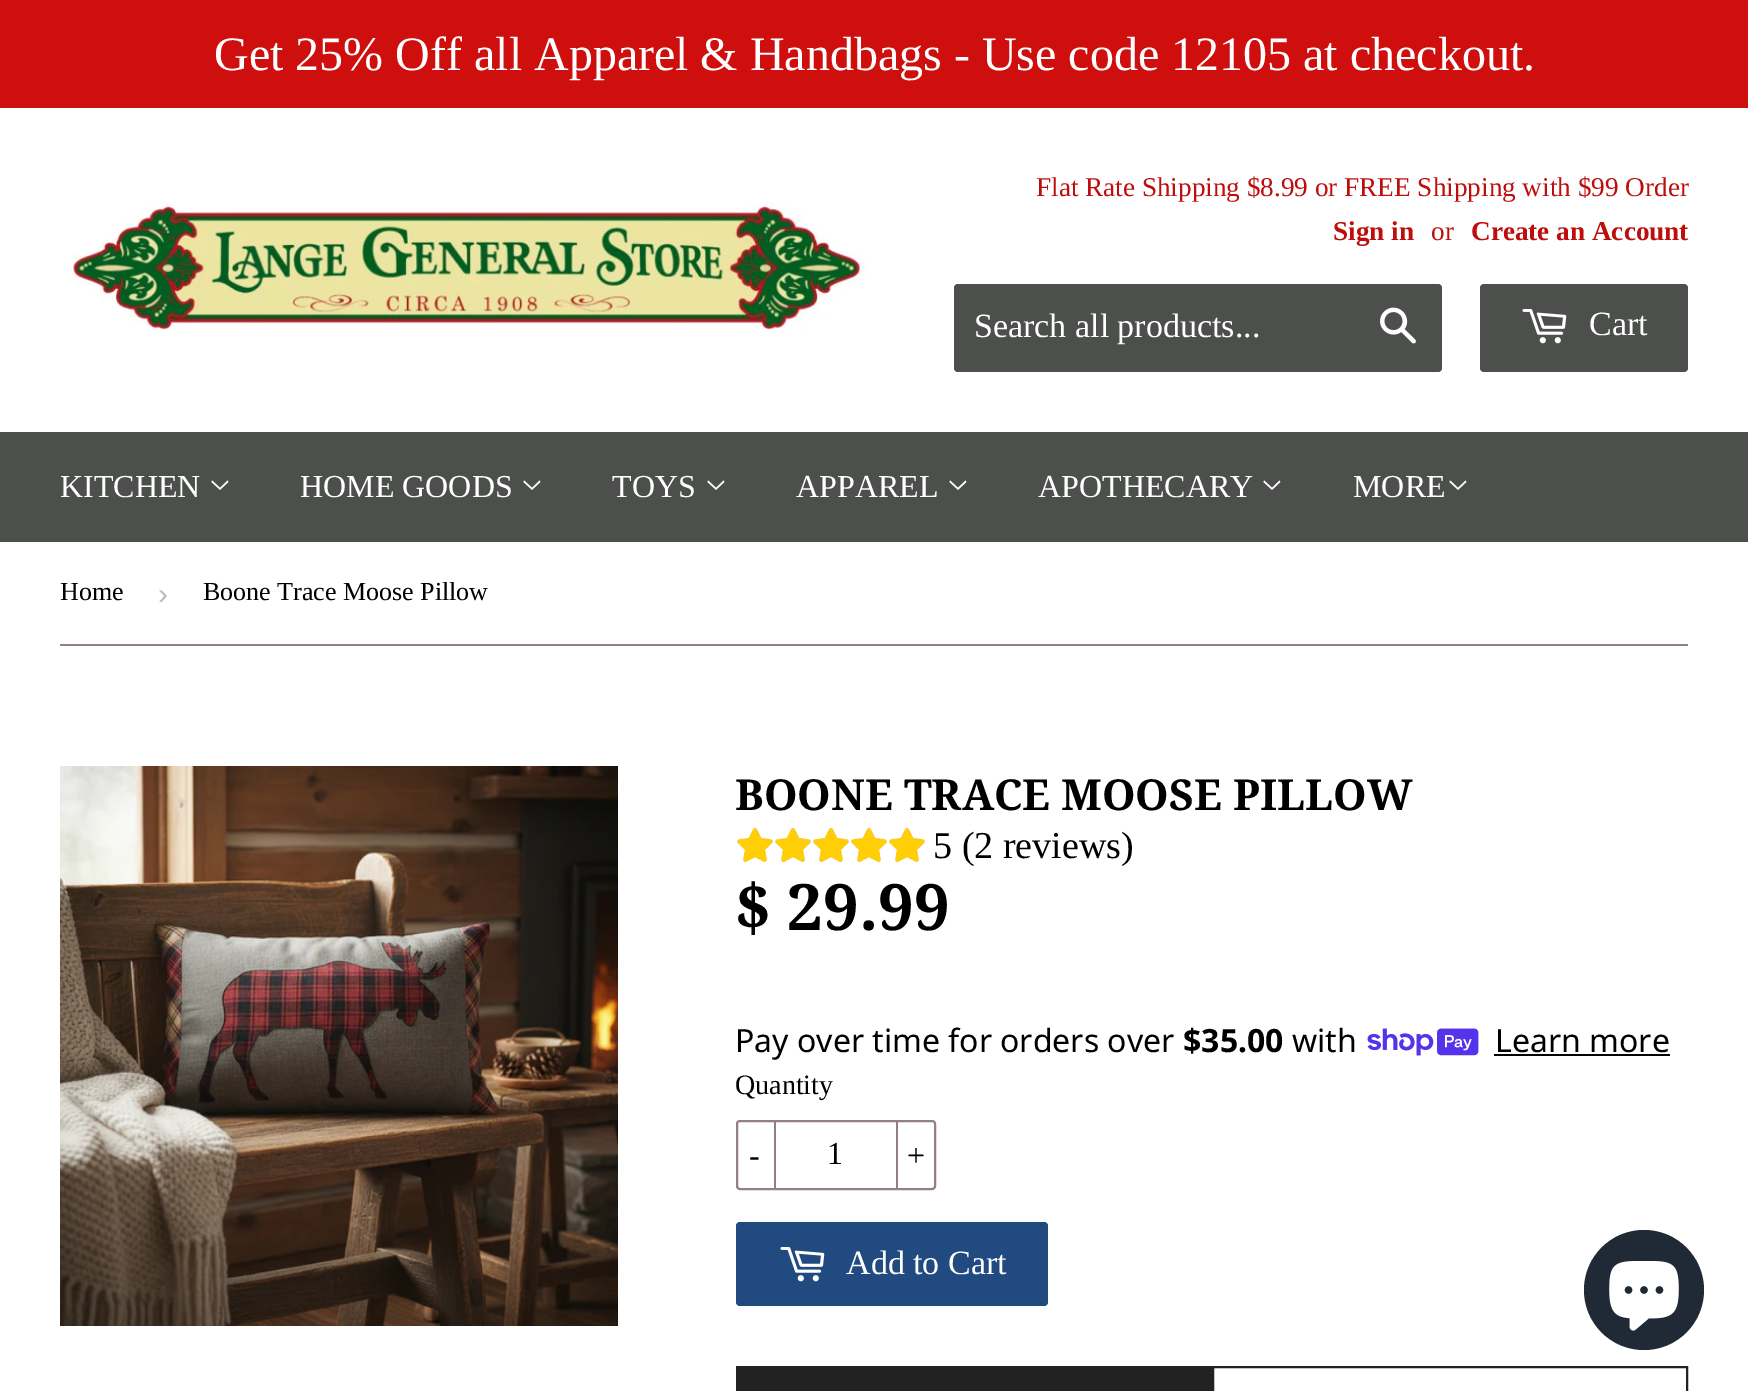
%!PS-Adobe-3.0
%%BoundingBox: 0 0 1748 1391
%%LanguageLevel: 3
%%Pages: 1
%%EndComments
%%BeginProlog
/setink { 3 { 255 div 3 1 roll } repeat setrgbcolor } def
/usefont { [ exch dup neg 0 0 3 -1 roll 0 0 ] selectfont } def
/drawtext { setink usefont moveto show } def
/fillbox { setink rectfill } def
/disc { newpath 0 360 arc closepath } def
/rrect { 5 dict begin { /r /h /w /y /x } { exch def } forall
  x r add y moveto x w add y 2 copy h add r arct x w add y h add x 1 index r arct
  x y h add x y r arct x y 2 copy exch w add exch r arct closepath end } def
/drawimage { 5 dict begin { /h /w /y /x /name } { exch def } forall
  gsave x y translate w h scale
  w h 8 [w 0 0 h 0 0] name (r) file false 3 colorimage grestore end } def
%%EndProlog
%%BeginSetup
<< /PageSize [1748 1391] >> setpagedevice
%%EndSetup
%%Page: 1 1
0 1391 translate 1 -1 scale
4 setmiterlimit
0 0 1748 1391 255 255 255 fillbox
0 0 1748 108 207 14 14 fillbox
(Get 25% Off all Apparel & Handbags - Use code 12105 at checkout.) 214 70 /LiberationSerif-Regular 48 255 255 255 drawtext
(assets/img1.rgb) 68 202 798 131 drawimage
(Flat Rate Shipping $8.99 or FREE Shipping with $99 Order) 1036 196 /LiberationSerif-Regular 27.2 190 13 13 drawtext
(Sign in) 1333 240 /LiberationSerif-Bold 27.2 190 13 13 drawtext
(or) 1431 240 /LiberationSerif-Regular 27.2 190 13 13 drawtext
(Create an Account) 1471 240 /LiberationSerif-Bold 27.2 190 13 13 drawtext
76 79 76 setink
954 284 488 88 4 rrect fill
(Search all products...) 974 337 /LiberationSerif-Regular 34 255 255 255 drawtext
(assets/img2.rgb) 1380 307 36 37 drawimage
76 79 76 setink
1480 284 208 88 4 rrect fill
(assets/img3.rgb) 1522 309 45 35 drawimage
(Cart) 1589 335 /LiberationSerif-Regular 34 255 255 255 drawtext
0 432 1748 110 76 79 76 fillbox
(KITCHEN) 60 497 /LiberationSerif-Regular 32 255 255 255 drawtext
(assets/img4.rgb) 211 480 18 10 drawimage
(HOME GOODS) 300 497 /LiberationSerif-Regular 32 255 255 255 drawtext
(assets/img4.rgb) 523 480 18 10 drawimage
(TOYS) 612 497 /LiberationSerif-Regular 32 255 255 255 drawtext
(assets/img4.rgb) 707 480 18 10 drawimage
(APPAREL) 796 497 /LiberationSerif-Regular 32 255 255 255 drawtext
(assets/img4.rgb) 949 480 18 10 drawimage
(APOTHECARY) 1038 497 /LiberationSerif-Regular 32 255 255 255 drawtext
(assets/img4.rgb) 1263 480 18 10 drawimage
(MORE) 1353 497 /LiberationSerif-Regular 32 255 255 255 drawtext
(assets/img4.rgb) 1449 480 18 10 drawimage
60 644 1628 2 147 129 129 fillbox
(Home) 60 600 /LiberationSerif-Regular 26 0 0 0 drawtext
(›) 158 604 /LiberationSans-Regular 30 187 187 187 drawtext
(Boone Trace Moose Pillow) 203 600 /LiberationSerif-Regular 26 0 0 0 drawtext
(assets/img5.rgb) 60 766 558 560 drawimage
(BOONE TRACE MOOSE PILLOW) 735 810 /DroidSerif-Bold 42.7 0 0 0 drawtext
(assets/img6.rgb) 737 828 36 34 drawimage
(assets/img6.rgb) 775 828 36 34 drawimage
(assets/img6.rgb) 813 828 36 34 drawimage
(assets/img6.rgb) 851 828 36 34 drawimage
(assets/img6.rgb) 889 828 36 34 drawimage
(assets/img7.rgb) 737 828 36 34 drawimage
(assets/img7.rgb) 775 828 36 34 drawimage
(assets/img7.rgb) 813 828 36 34 drawimage
(assets/img7.rgb) 851 828 36 34 drawimage
(assets/img7.rgb) 889 828 36 34 drawimage
(5 \(2 reviews\)) 933 858 /LiberationSerif-Regular 38 0 0 0 drawtext
($ 29.99) 735 930 /DroidSerif-Bold 64 0 0 0 drawtext
(Pay over time for orders over) 735 1052 /NotoSans-Regular 32 0 0 0 drawtext
($35.00) 1183 1052 /NotoSans-Bold 32 0 0 0 drawtext
(with) 1292 1052 /NotoSans-Regular 32 0 0 0 drawtext
(assets/img8.rgb) 1367 1028 112 28 drawimage
(Learn more) 1495 1052 /NotoSans-Regular 32 0 0 0 drawtext
1494 1054 176 2 3 3 3 fillbox
(Quantity) 735 1094 /LiberationSerif-Regular 28 0 0 0 drawtext
147 129 129 setink
2 setlinewidth
737 1121 198 68 3 rrect stroke
774 1120 2 70 147 129 129 fillbox
(-) 749 1166 /LiberationSerif-Regular 32 0 0 0 drawtext
(1) 827 1164 /LiberationSerif-Regular 32 0 0 0 drawtext
896 1120 2 70 147 129 129 fillbox
(+) 907 1166 /LiberationSerif-Regular 32 0 0 0 drawtext
32 74 128 setink
736 1222 312 84 4 rrect fill
(assets/img9.rgb) 780 1247 45 35 drawimage
(Add to Cart) 846 1274 /LiberationSerif-Regular 34 255 255 255 drawtext
736 1366 476 25 34 34 34 fillbox
1213 1367 474 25 rectstroke
32 42 54 setink
1644 1290 60 disc fill
(assets/img10.rgb) 1609 1261 70 70 drawimage
showpage
%%EOF
